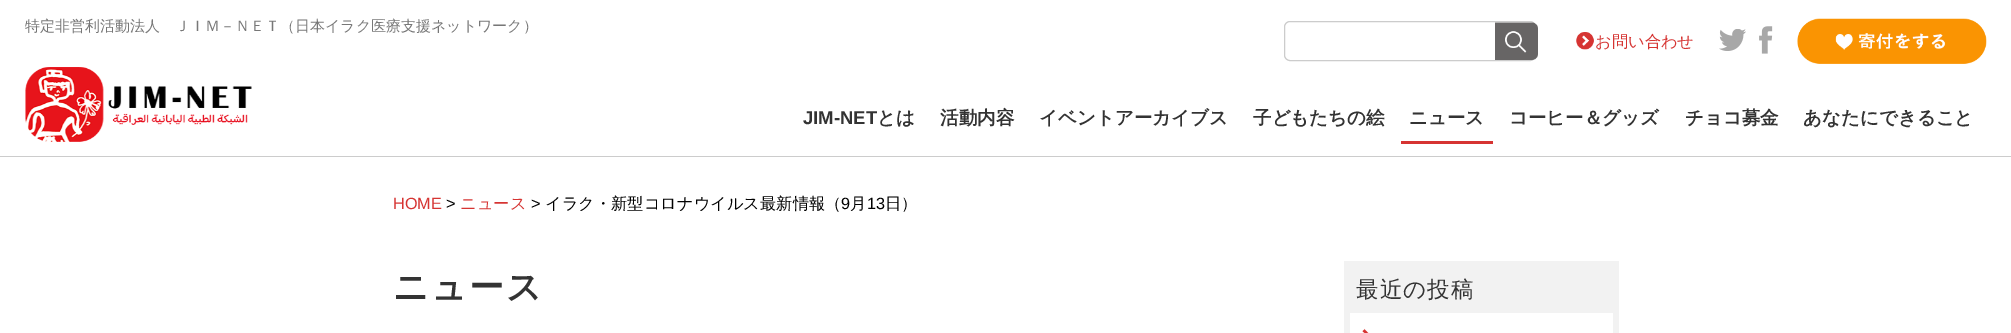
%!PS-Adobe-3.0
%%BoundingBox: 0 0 2011 333
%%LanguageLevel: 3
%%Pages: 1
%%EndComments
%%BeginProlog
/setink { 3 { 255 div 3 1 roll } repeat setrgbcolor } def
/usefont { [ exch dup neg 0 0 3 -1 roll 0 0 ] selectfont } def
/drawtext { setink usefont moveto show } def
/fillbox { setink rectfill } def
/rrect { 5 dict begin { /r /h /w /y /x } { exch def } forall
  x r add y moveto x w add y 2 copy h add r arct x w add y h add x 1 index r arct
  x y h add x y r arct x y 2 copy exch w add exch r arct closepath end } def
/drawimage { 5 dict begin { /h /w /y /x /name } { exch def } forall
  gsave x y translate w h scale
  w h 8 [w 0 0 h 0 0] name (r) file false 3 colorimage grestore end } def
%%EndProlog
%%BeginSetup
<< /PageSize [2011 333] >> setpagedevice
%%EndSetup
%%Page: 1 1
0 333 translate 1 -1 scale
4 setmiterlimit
0 0 2011 333 255 255 255 fillbox
0 156 2011 1 204 204 204 fillbox
(特定非営利活動法人　ＪＩＭ－ＮＥＴ（日本イラク医療支援ネットワーク）) 25 31 /WenQuanYiZenHei-Medium 15 119 119 119 drawtext
204 204 204 setink
1284.5 21.5 251 39 5.5 rrect stroke
(assets/img1.rgb) 1495 22 43 38 drawimage
(assets/img2.rgb) 1576 32 18 18 drawimage
(お問い合わせ) 1595 47 /WenQuanYiZenHei-Medium 16.25 214 52 50 drawtext
(assets/img3.rgb) 1719 29 27 22 drawimage
(assets/img4.rgb) 1759 26 14 28 drawimage
(assets/img5.rgb) 1797 18 190 46 drawimage
(assets/img6.rgb) 25 67 227 75 drawimage
(JIM-NET) 803 124 /LiberationSans-Bold 18.5 51 51 51 drawtext
(とは) 877 124 /WenQuanYiZenHei-Bold 18.5 51 51 51 drawtext
(活動内容) 940 124 /WenQuanYiZenHei-Bold 18.5 51 51 51 drawtext
(イベントアーカイブス) 1039 124 /WenQuanYiZenHei-Bold 18.5 51 51 51 drawtext
(子どもたちの絵) 1253 124 /WenQuanYiZenHei-Bold 18.5 51 51 51 drawtext
(ニュース) 1409 124 /WenQuanYiZenHei-Bold 18.5 51 51 51 drawtext
1401 141 92 3 214 52 50 fillbox
(コーヒー＆グッズ) 1509 124 /WenQuanYiZenHei-Bold 18.5 51 51 51 drawtext
(チョコ募金) 1685 124 /WenQuanYiZenHei-Bold 18.5 51 51 51 drawtext
(あなたにできること) 1803 124 /WenQuanYiZenHei-Bold 18.5 51 51 51 drawtext
(HOME) 393 209 /LiberationSans-Regular 16.25 214 52 50 drawtext
(>) 446 209 /LiberationSans-Regular 16.25 0 0 0 drawtext
(ニュース) 460 209 /WenQuanYiZenHei-Medium 16.25 214 52 50 drawtext
(>) 531 209 /LiberationSans-Regular 16.25 0 0 0 drawtext
(イラク・新型コロナウイルス最新情報（) 545 209 /WenQuanYiZenHei-Medium 16.25 0 0 0 drawtext
(9) 841 209 /LiberationSans-Regular 16.25 0 0 0 drawtext
(月) 850 209 /WenQuanYiZenHei-Medium 16.25 0 0 0 drawtext
(13) 867 209 /LiberationSans-Regular 16.25 0 0 0 drawtext
(日）) 885 209 /WenQuanYiZenHei-Medium 16.25 0 0 0 drawtext
/WenQuanYiZenHei-Bold 35 usefont
51 51 51 setink
393 299 moveto 2 0 (ニュース) ashow
1344 261 275 72 242 242 242 fillbox
1350 313 263 20 255 255 255 fillbox
(assets/img7.rgb) 1362 328 7 5 drawimage
/WenQuanYiZenHei-Medium 22.5 usefont
51 51 51 setink
1356 297 moveto 1 0 (最近の投稿) ashow
showpage
%%EOF
